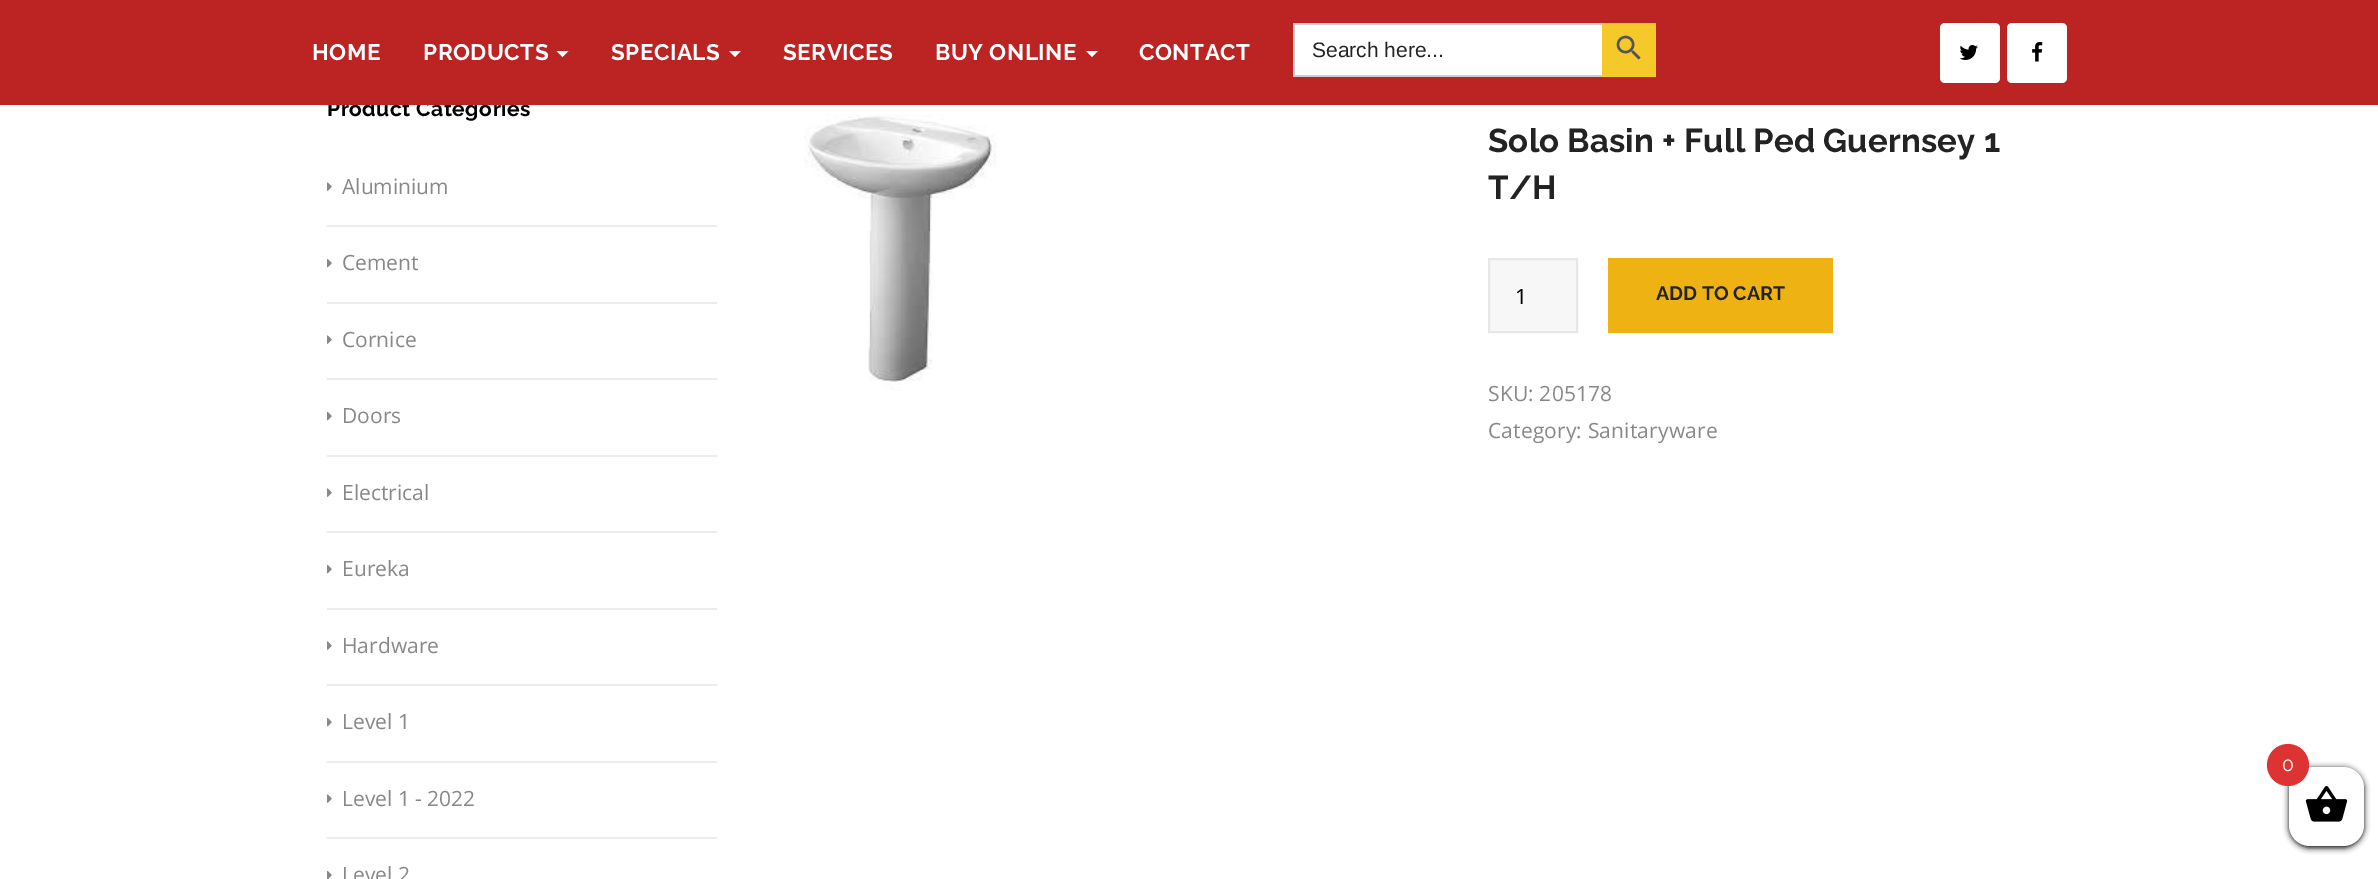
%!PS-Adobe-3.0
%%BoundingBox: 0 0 2378 879
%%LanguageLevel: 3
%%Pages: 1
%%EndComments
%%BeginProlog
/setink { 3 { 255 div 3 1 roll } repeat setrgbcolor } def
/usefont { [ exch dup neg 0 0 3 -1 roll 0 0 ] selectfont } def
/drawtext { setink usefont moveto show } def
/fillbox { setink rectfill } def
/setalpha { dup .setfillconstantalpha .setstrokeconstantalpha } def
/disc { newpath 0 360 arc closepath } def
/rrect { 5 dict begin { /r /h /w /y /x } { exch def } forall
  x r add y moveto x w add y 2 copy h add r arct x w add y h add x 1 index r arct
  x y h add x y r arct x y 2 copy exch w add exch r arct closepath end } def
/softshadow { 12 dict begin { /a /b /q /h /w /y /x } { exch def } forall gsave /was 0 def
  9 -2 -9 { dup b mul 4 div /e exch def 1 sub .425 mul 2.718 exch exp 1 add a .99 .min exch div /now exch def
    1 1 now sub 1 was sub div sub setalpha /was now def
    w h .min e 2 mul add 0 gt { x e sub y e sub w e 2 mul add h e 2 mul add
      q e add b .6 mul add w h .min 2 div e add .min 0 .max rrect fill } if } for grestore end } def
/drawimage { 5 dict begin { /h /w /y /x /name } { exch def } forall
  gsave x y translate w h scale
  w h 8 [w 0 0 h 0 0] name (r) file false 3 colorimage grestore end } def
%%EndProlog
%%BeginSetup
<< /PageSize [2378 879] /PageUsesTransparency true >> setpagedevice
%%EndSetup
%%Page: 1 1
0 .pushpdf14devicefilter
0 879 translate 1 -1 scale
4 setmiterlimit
0 0 2378 879 255 255 255 fillbox
/Raleway-Bold 21 usefont
0 0 0 setink
327 116 moveto 0.5 0 (Product Categories) ashow
0 0 2378 105 187 36 35 fillbox
/Raleway-Bold 22.5 usefont
255 255 255 setink
312 60 moveto 0.5 0 (HOME) ashow
423 60 moveto 0.5 0 (PRODUCTS) ashow
556.5 51 moveto 568.5 51 lineto 562.5 57 lineto closepath fill
611 60 moveto 0.5 0 (SPECIALS) ashow
729 51 moveto 741 51 lineto 735 57 lineto closepath fill
783 60 moveto 0.5 0 (SERVICES) ashow
935 60 moveto 0.5 0 (BUY ONLINE) ashow
1086 51 moveto 1098 51 lineto 1092 57 lineto closepath fill
1139 60 moveto 0.5 0 (CONTACT) ashow
1295 25 307 50 255 255 255 fillbox
1293 23 309 2 204 204 204 fillbox
1293 75 309 2 204 204 204 fillbox
1293 23 2 54 204 204 204 fillbox
(Search here...) 1312 57 /LiberationSans-Regular 21 35 35 35 drawtext
1602 23 54 54 244 201 41 fillbox
(assets/img1.rgb) 1616 35 25 25 drawimage
255 255 255 setink
1940 23 60 60 5 rrect fill
(assets/img2.rgb) 1959 45 19 15 drawimage
2007 23 60 60 5 rrect fill
(assets/img3.rgb) 2032 42 11 20 drawimage
327 225 390 2 236 236 236 fillbox
(assets/img4.rgb) 327 182 5 9 drawimage
(Aluminium) 342 194 /OpenSans-Regular 21 136 136 136 drawtext
327 302 390 2 236 236 236 fillbox
(assets/img5.rgb) 327 258 5 10 drawimage
(Cement) 342 270 /OpenSans-Regular 21 136 136 136 drawtext
327 378 390 2 236 236 236 fillbox
(assets/img4.rgb) 327 335 5 9 drawimage
(Cornice) 342 347 /OpenSans-Regular 21 136 136 136 drawtext
327 455 390 2 236 236 236 fillbox
(assets/img5.rgb) 327 411 5 10 drawimage
(Doors) 342 423 /OpenSans-Regular 21 136 136 136 drawtext
327 531 390 2 236 236 236 fillbox
(assets/img4.rgb) 327 488 5 9 drawimage
(Electrical) 342 500 /OpenSans-Regular 21 136 136 136 drawtext
327 608 390 2 236 236 236 fillbox
(assets/img5.rgb) 327 564 5 10 drawimage
(Eureka) 342 576 /OpenSans-Regular 21 136 136 136 drawtext
327 684 390 2 236 236 236 fillbox
(assets/img4.rgb) 327 641 5 9 drawimage
(Hardware) 342 653 /OpenSans-Regular 21 136 136 136 drawtext
327 761 390 2 236 236 236 fillbox
(assets/img5.rgb) 327 717 5 10 drawimage
(Level 1) 342 729 /OpenSans-Regular 21 136 136 136 drawtext
327 837 390 2 236 236 236 fillbox
(assets/img4.rgb) 327 794 5 9 drawimage
(Level 1 - 2022) 342 806 /OpenSans-Regular 21 136 136 136 drawtext
(assets/img6.rgb) 327 870 5 9 drawimage
(Level 2) 342 882 /OpenSans-Regular 21 136 136 136 drawtext
(assets/img7.rgb) 804 114 193 277 drawimage
/Raleway-Bold 33 usefont
35 35 35 setink
1488 152 moveto 0.15 0 (Solo Basin + Full Ped Guernsey 1) ashow
1488 199 moveto 0.15 0 (T/H) ashow
247 247 247 setink
1489 259 moveto 1577 259 lineto 1577 332 lineto 1489 332 lineto closepath gsave fill grestore
231 231 231 setink
2 setlinewidth
stroke
(1) 1515 304 /OpenSans-Regular 21 0 0 0 drawtext
1608 258 225 75 238 179 19 fillbox
(ADD TO CART) 1656 300 /Raleway-Bold 19.5 35 35 35 drawtext
/OpenSans-Regular 21 usefont
136 136 136 setink
1488 401 moveto 0.15 0 (SKU: 205178) ashow
1488 438 moveto 0.15 0 (Category: Sanitaryware) ashow
0 0 0 setink
2289 768 75 80 21 3 1 softshadow
255 255 255 setink
2289 767 75 79 21 rrect fill
221 51 51 setink
2288 765 21 disc fill
(0) 2282 771 /Raleway-Regular 19.5 255 255 255 drawtext
(assets/img8.rgb) 2305 786 43 36 drawimage
.poppdf14devicefilter showpage
%%EOF
